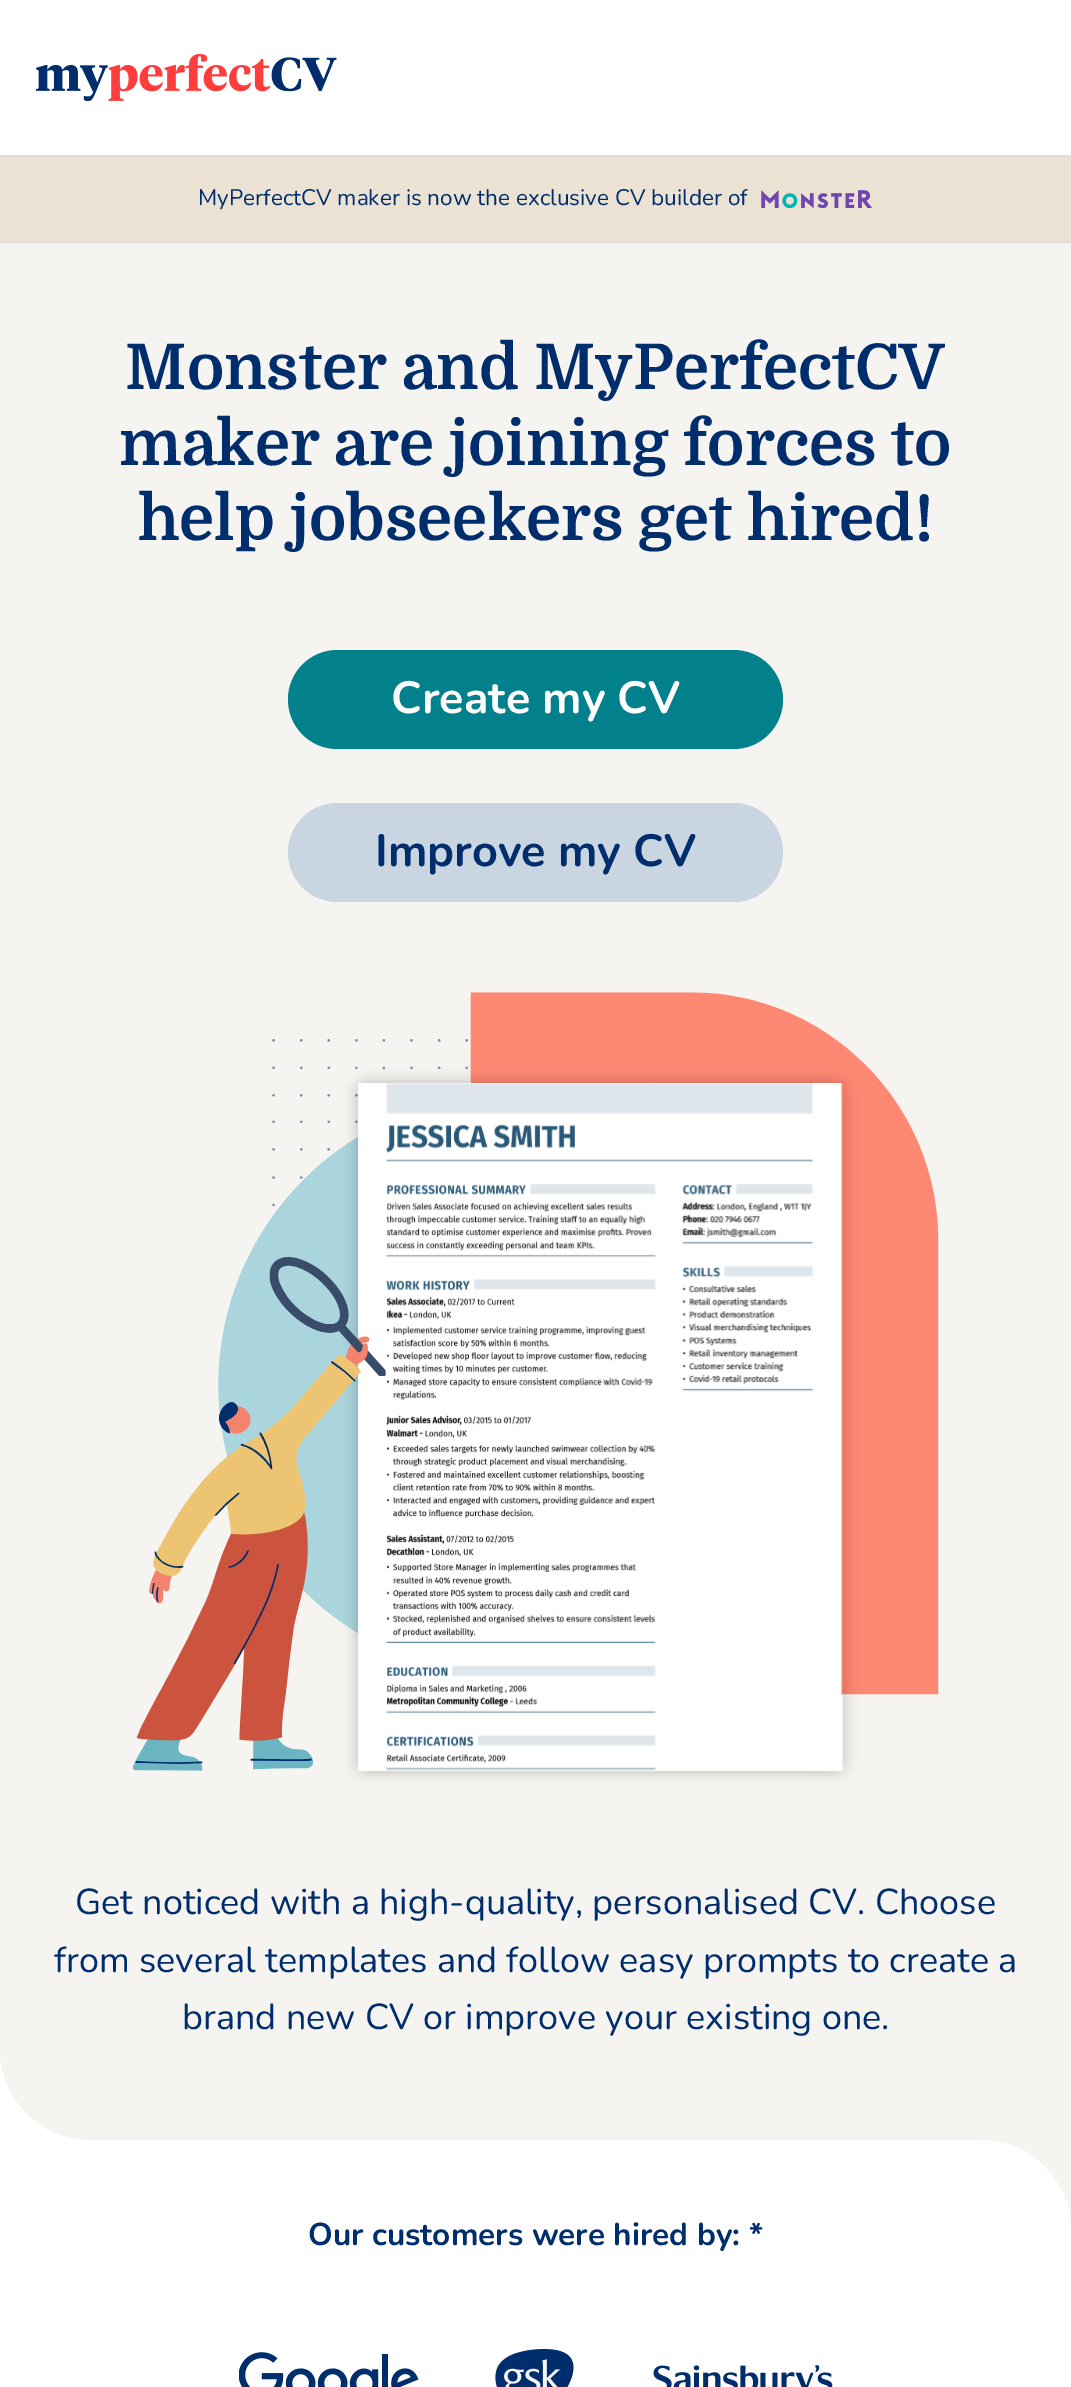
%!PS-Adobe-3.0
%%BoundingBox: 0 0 1071 2387
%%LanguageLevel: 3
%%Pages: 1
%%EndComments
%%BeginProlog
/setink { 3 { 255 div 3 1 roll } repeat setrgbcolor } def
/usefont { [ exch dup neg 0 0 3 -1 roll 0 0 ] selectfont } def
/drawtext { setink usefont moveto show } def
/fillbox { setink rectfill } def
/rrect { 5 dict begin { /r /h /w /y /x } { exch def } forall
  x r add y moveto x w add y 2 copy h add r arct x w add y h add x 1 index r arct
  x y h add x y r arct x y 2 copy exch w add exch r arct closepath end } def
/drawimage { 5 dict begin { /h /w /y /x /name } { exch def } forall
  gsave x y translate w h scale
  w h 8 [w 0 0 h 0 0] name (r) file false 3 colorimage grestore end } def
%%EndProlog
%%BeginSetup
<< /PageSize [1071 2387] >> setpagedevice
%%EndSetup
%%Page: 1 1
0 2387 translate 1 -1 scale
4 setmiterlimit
0 0 1071 2387 255 255 255 fillbox
(assets/img1.rgb) 36 54 301 47 drawimage
0 157 1071 84 235 226 211 fillbox
0 155 1071 2 224 221 214 fillbox
0 241 1071 2 224 221 214 fillbox
(MyPerfectCV maker is now the exclusive CV builder of) 198 205 /Nunito-Regular 22.5 0 45 107 drawtext
(assets/img2.rgb) 761 190 111 19 drawimage
246 244 241 setink
0 243 moveto 1071 243 lineto 1071 2140 lineto 90 2140 lineto 40.5 2140 0 2099.5 0 2050 curveto closepath fill
(Monster and MyPerfectCV) 125 389 /Domine-Bold 63 0 45 107 drawtext
(maker are joining forces to) 119 465 /Domine-Bold 63 0 45 107 drawtext
(help jobseekers get hired!) 138 540 /Domine-Bold 63 0 45 107 drawtext
2 129 140 setink
288 650 495 99 49.5 rrect fill
(Create my CV) 391 713 /Nunito-Bold 45 255 255 255 drawtext
202 213 226 setink
288 803 495 99 49.5 rrect fill
(Improve my CV) 375 866 /Nunito-Bold 45 0 45 107 drawtext
(assets/img3.rgb) 133 992 806 790 drawimage
(Get noticed with a high-quality, personalised CV. Choose) 75 1914 /Nunito-Regular 36 0 45 107 drawtext
(from several templates and follow easy prompts to create a) 54 1972 /Nunito-Regular 36 0 45 107 drawtext
(brand new CV or improve your existing one.) 182 2029 /Nunito-Regular 36 0 45 107 drawtext
982 2140 89 90 246 244 241 fillbox
255 255 255 setink
0 2140 moveto 981 2140 lineto 1030.5 2140 1071 2180.5 1071 2230 curveto 1071 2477 lineto 0 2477 lineto closepath fill
(Our customers were hired by: *) 308 2245 /Nunito-Bold 31.5 0 45 107 drawtext
(assets/img4.rgb) 239 2352 180 35 drawimage
(assets/img5.rgb) 495 2349 79 38 drawimage
(assets/img6.rgb) 653 2365 180 22 drawimage
showpage
%%EOF
